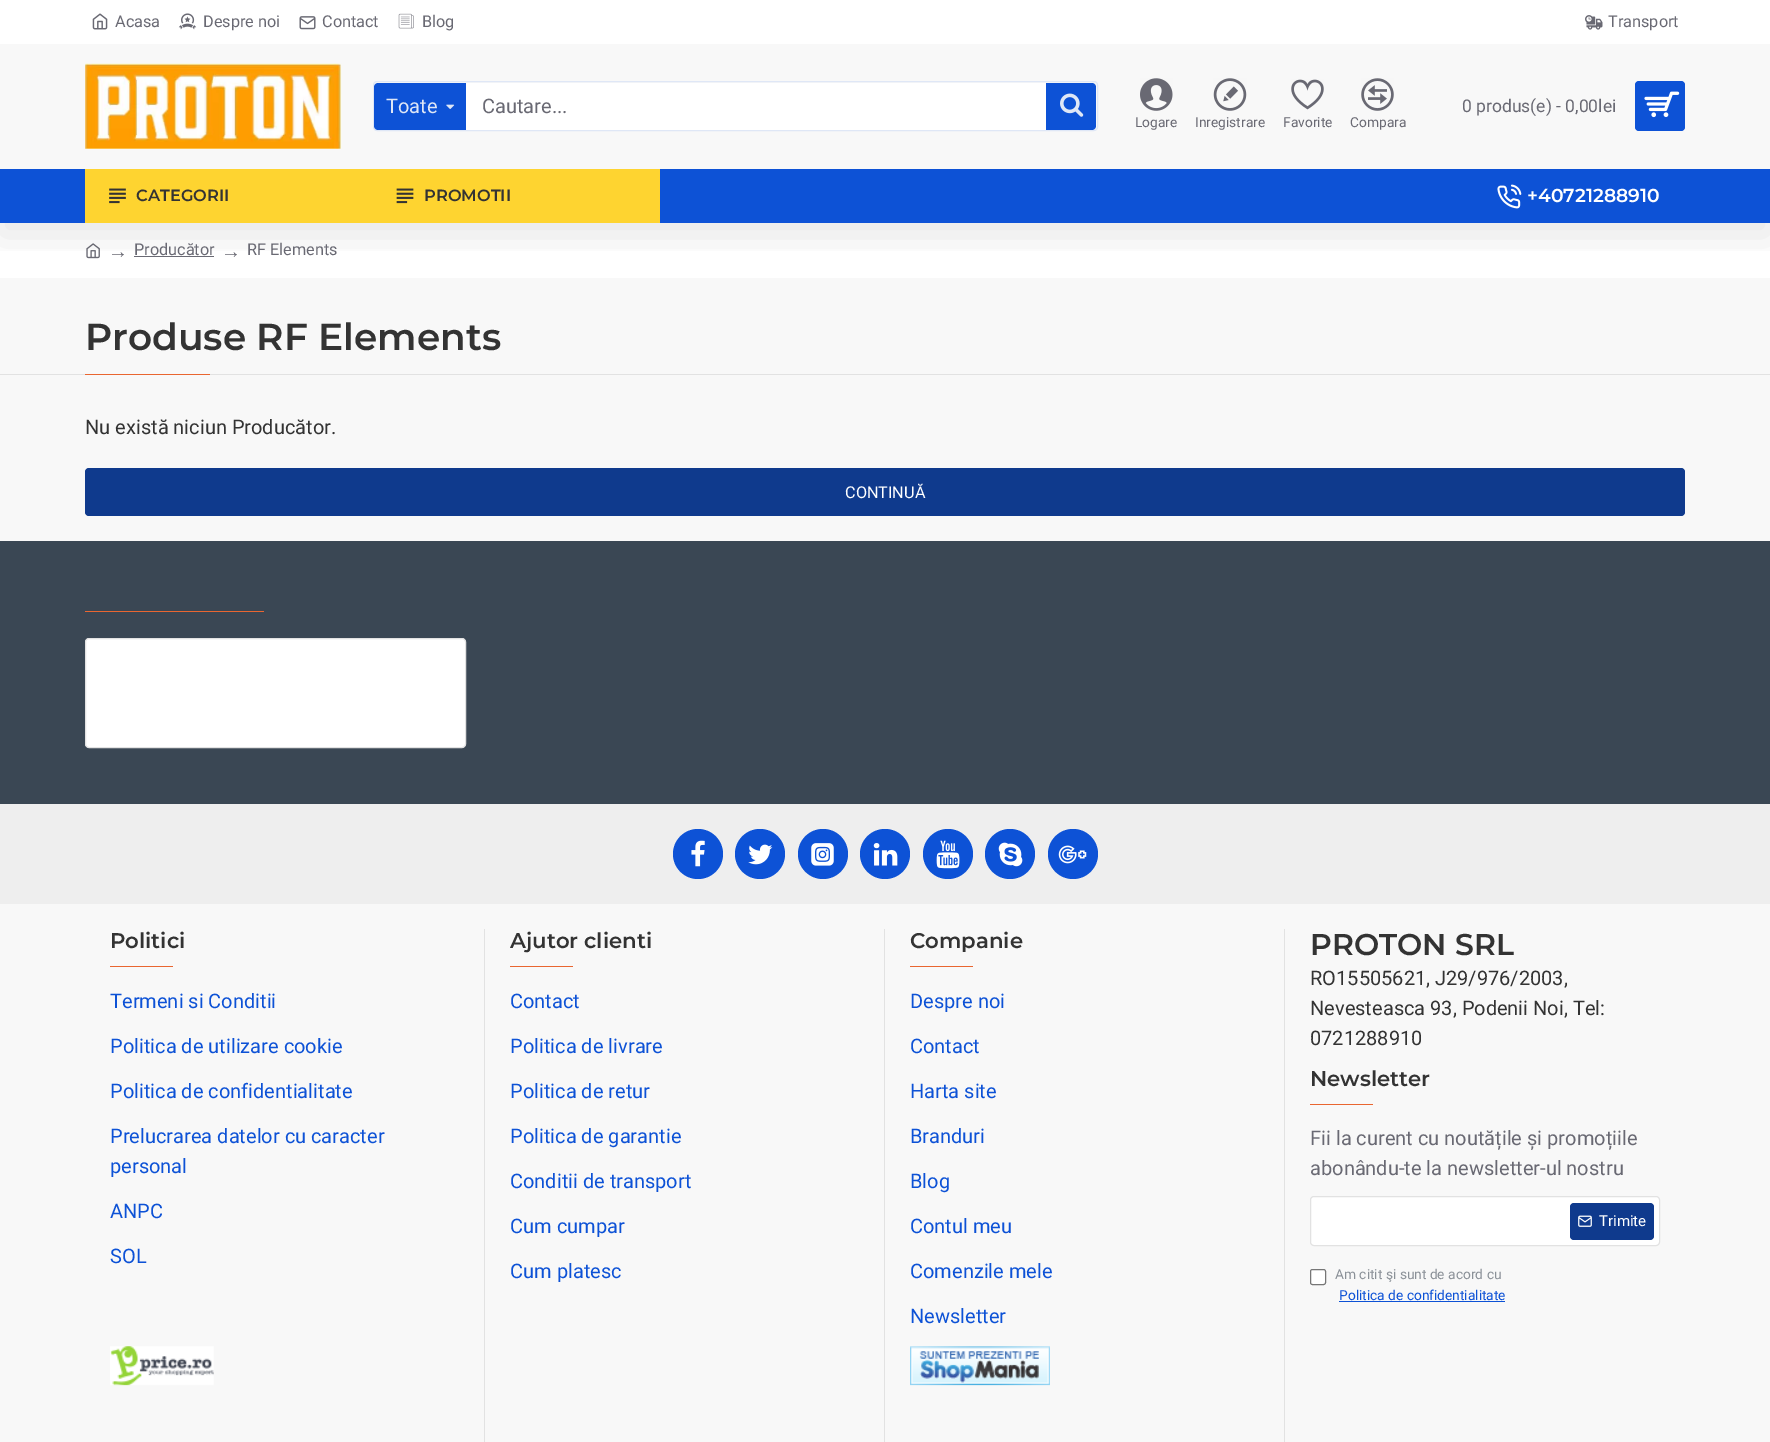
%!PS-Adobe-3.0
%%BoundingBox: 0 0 1770 1442
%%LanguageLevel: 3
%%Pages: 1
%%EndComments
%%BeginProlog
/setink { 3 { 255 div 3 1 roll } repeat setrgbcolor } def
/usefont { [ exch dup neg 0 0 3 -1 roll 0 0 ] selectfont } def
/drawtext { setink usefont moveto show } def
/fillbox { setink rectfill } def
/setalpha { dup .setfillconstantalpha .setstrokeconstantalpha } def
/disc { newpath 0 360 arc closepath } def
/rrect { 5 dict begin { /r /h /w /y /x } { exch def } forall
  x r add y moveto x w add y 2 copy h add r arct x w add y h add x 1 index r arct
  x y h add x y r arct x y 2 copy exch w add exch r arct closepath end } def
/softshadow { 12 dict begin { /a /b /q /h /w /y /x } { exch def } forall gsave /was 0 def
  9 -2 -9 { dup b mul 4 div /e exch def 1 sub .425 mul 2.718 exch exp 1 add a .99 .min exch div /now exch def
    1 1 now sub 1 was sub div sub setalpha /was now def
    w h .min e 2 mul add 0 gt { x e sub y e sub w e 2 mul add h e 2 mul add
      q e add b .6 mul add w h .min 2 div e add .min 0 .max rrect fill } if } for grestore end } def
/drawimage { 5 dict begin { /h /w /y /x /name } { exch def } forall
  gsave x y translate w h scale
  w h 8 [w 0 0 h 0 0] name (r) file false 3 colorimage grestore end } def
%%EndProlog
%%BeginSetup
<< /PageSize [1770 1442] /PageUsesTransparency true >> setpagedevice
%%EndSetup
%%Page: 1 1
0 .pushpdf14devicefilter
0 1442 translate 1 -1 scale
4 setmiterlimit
0 0 1770 1442 248 248 248 fillbox
0 223 1770 55 255 255 255 fillbox
(assets/img17.rgb) 86 243 14 16 drawimage
134 256 80 1 105 105 115 fillbox
gsave
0 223 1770 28 rectclip
0 0 0 setink
0 13 1770 222 0 19 0.1 softshadow
grestore
0 0 1770 44 255 255 255 fillbox
(assets/img1.rgb) 92 13 16 17 drawimage
(Acasa) 115 27 /Roboto-Regular 16.25 105 105 115 drawtext
(assets/img2.rgb) 178 13 19 17 drawimage
(Despre noi) 203 27 /Roboto-Regular 16.25 105 105 115 drawtext
(assets/img3.rgb) 299 16 17 14 drawimage
(Contact) 322 27 /Roboto-Regular 16.25 105 105 115 drawtext
(assets/img4.rgb) 398 13 16 16 drawimage
(Blog) 422 27 /Roboto-Regular 16.25 105 105 115 drawtext
(assets/img5.rgb) 1585 15 18 15 drawimage
(Transport) 1608 27 /Roboto-Regular 16.25 105 105 115 drawtext
(assets/img6.rgb) 85 63 257 86 drawimage
223 231 246 setink
373.5 81.5 724 49 3.5 rrect stroke
13 82 214 setink
378 83 moveto 466 83 lineto 466 130 lineto 378 130 lineto 376 130 374 128 374 126 curveto 374 87 lineto 374 85 376 83 378 83 curveto closepath fill
(Toate) 386 113 /Roboto-Regular 20 223 231 246 drawtext
(assets/img7.rgb) 446 104 9 5 drawimage
466 83 580 47 255 255 255 fillbox
(Cautare...) 482 113 /Roboto-Regular 20 105 105 115 drawtext
13 82 214 setink
1046 83 moveto 1092 83 lineto 1094 83 1096 85 1096 87 curveto 1096 126 lineto 1096 128 1094 130 1092 130 curveto 1046 130 lineto closepath fill
(assets/img8.rgb) 1060 93 24 24 drawimage
(0 produs\(e\) - 0,00lei) 1462 112 /Roboto-Regular 17.5 105 105 115 drawtext
13 82 214 setink
1635 81 50 50 4 rrect fill
(assets/img9.rgb) 1644 91 36 27 drawimage
(assets/img10.rgb) 1140 78 33 33 drawimage
(Logare) 1135 127 /Roboto-Regular 13.75 105 105 115 drawtext
(assets/img11.rgb) 1213 78 34 33 drawimage
(Inregistrare) 1195 127 /Roboto-Regular 13.75 105 105 115 drawtext
(assets/img12.rgb) 1291 79 33 31 drawimage
(Favorite) 1283 127 /Roboto-Regular 13.75 105 105 115 drawtext
(assets/img13.rgb) 1361 78 33 33 drawimage
(Compara) 1350 127 /Roboto-Regular 13.75 105 105 115 drawtext
0 169 1770 54 13 82 214 fillbox
85 169 575 54 254 212 48 fillbox
(assets/img14.rgb) 109 188 17 16 drawimage
(CATEGORII) 136 201 /Montserrat-SemiBold 16.25 51 51 51 drawtext
(assets/img15.rgb) 396 188 18 16 drawimage
(PROMOTII) 424 201 /Montserrat-SemiBold 16.25 51 51 51 drawtext
(assets/img16.rgb) 1497 184 25 25 drawimage
(+40721288910) 1527 202 /Montserrat-SemiBold 18.75 255 255 255 drawtext
(→) 108 258 /LiberationSerif-Regular 20 105 105 115 drawtext
(Producător) 134 255 /Roboto-Regular 16.25 105 105 115 drawtext
(→) 221 258 /LiberationSerif-Regular 20 105 105 115 drawtext
(RF Elements) 247 255 /Roboto-Regular 16.25 105 105 115 drawtext
0 374 1770 1 226 226 226 fillbox
(Produse RF Elements) 85 350 /Montserrat-SemiBold 37.5 51 51 51 drawtext
85 374 125 1 233 102 49 fillbox
(Nu există niciun Producător.) 85 434 /Roboto-Regular 20 51 51 51 drawtext
15 58 141 setink
85 468 1600 48 4 rrect fill
(CONTINUĂ) 845 498 /Roboto-Regular 16.25 255 255 255 drawtext
0 541 1770 263 58 71 84 fillbox
85 611 179 1 233 102 49 fillbox
255 255 255 setink
85.5 638.5 380 109 3.5 rrect gsave fill grestore
226 226 226 setink
stroke
0 804 1770 100 238 238 238 fillbox
13 82 214 setink
698 854 25 disc fill
(assets/img18.rgb) 691 840 14 27 drawimage
760 854 25 disc fill
(assets/img19.rgb) 748 844 25 21 drawimage
823 854 25 disc fill
(assets/img20.rgb) 811 843 23 23 drawimage
885 854 25 disc fill
(assets/img21.rgb) 873 843 25 23 drawimage
948 854 25 disc fill
(assets/img22.rgb) 936 840 24 29 drawimage
1010 854 25 disc fill
(assets/img23.rgb) 998 842 25 25 drawimage
1073 854 25 disc fill
(assets/img24.rgb) 1058 845 29 19 drawimage
484 929 1 513 226 226 226 fillbox
(Politici) 110 948 /Montserrat-SemiBold 21.25 51 51 51 drawtext
110 966 63 1 233 102 49 fillbox
(Termeni si Conditii) 110 1008 /Roboto-Regular 20 13 82 214 drawtext
(Politica de utilizare cookie) 110 1053 /Roboto-Regular 20 13 82 214 drawtext
(Politica de confidentialitate) 110 1098 /Roboto-Regular 20 13 82 214 drawtext
(Prelucrarea datelor cu caracter) 110 1143 /Roboto-Regular 20 13 82 214 drawtext
(personal) 110 1173 /Roboto-Regular 20 13 82 214 drawtext
(ANPC) 110 1218 /Roboto-Regular 20 13 82 214 drawtext
(SOL) 110 1263 /Roboto-Regular 20 13 82 214 drawtext
(assets/img25.rgb) 110 1346 104 40 drawimage
884 929 1 513 226 226 226 fillbox
(Ajutor clienti) 510 948 /Montserrat-SemiBold 21.25 51 51 51 drawtext
510 966 63 1 233 102 49 fillbox
(Contact) 510 1008 /Roboto-Regular 20 13 82 214 drawtext
(Politica de livrare) 510 1053 /Roboto-Regular 20 13 82 214 drawtext
(Politica de retur) 510 1098 /Roboto-Regular 20 13 82 214 drawtext
(Politica de garantie) 510 1143 /Roboto-Regular 20 13 82 214 drawtext
(Conditii de transport) 510 1188 /Roboto-Regular 20 13 82 214 drawtext
(Cum cumpar) 510 1233 /Roboto-Regular 20 13 82 214 drawtext
(Cum platesc) 510 1278 /Roboto-Regular 20 13 82 214 drawtext
1284 929 1 513 226 226 226 fillbox
(Companie) 910 948 /Montserrat-SemiBold 21.25 51 51 51 drawtext
910 966 63 1 233 102 49 fillbox
(Despre noi) 910 1008 /Roboto-Regular 20 13 82 214 drawtext
(Contact) 910 1053 /Roboto-Regular 20 13 82 214 drawtext
(Harta site) 910 1098 /Roboto-Regular 20 13 82 214 drawtext
(Branduri) 910 1143 /Roboto-Regular 20 13 82 214 drawtext
(Blog) 910 1188 /Roboto-Regular 20 13 82 214 drawtext
(Contul meu) 910 1233 /Roboto-Regular 20 13 82 214 drawtext
(Comenzile mele) 910 1278 /Roboto-Regular 20 13 82 214 drawtext
(Newsletter) 910 1323 /Roboto-Regular 20 13 82 214 drawtext
(assets/img26.rgb) 910 1346 140 40 drawimage
(PROTON SRL) 1310 955 /Montserrat-SemiBold 30 51 51 51 drawtext
(RO15505621, J29/976/2003,) 1310 985 /Roboto-Regular 20 51 51 51 drawtext
(Nevesteasca 93, Podenii Noi, Tel:) 1310 1015 /Roboto-Regular 20 51 51 51 drawtext
(0721288910) 1310 1045 /Roboto-Regular 20 51 51 51 drawtext
(Newsletter) 1310 1086 /Montserrat-SemiBold 21.25 51 51 51 drawtext
1310 1104 63 1 233 102 49 fillbox
(Fii la curent cu noutățile și promoțiile) 1310 1145 /Roboto-Regular 20 105 105 115 drawtext
(abonându-te la newsletter-ul nostru) 1310 1175 /Roboto-Regular 20 105 105 115 drawtext
255 255 255 setink
1310.5 1196.5 349 49 3.5 rrect gsave fill grestore
226 226 226 setink
stroke
15 58 141 setink
1570 1203 84 37 4 rrect fill
(assets/img27.rgb) 1578 1215 14 12 drawimage
(Trimite) 1599 1226 /Roboto-Regular 15 255 255 255 drawtext
1310.5 1269.5 15 15 2 rrect gsave fill grestore
118 118 118 setink
stroke
(Am citit şi sunt de acord cu) 1335 1279 /Roboto-Regular 13.75 139 145 152 drawtext
(Politica de confidentialitate) 1339 1300 /Roboto-Regular 13.75 13 82 214 drawtext
1339 1301 166 1 13 82 214 fillbox
.poppdf14devicefilter showpage
%%EOF
